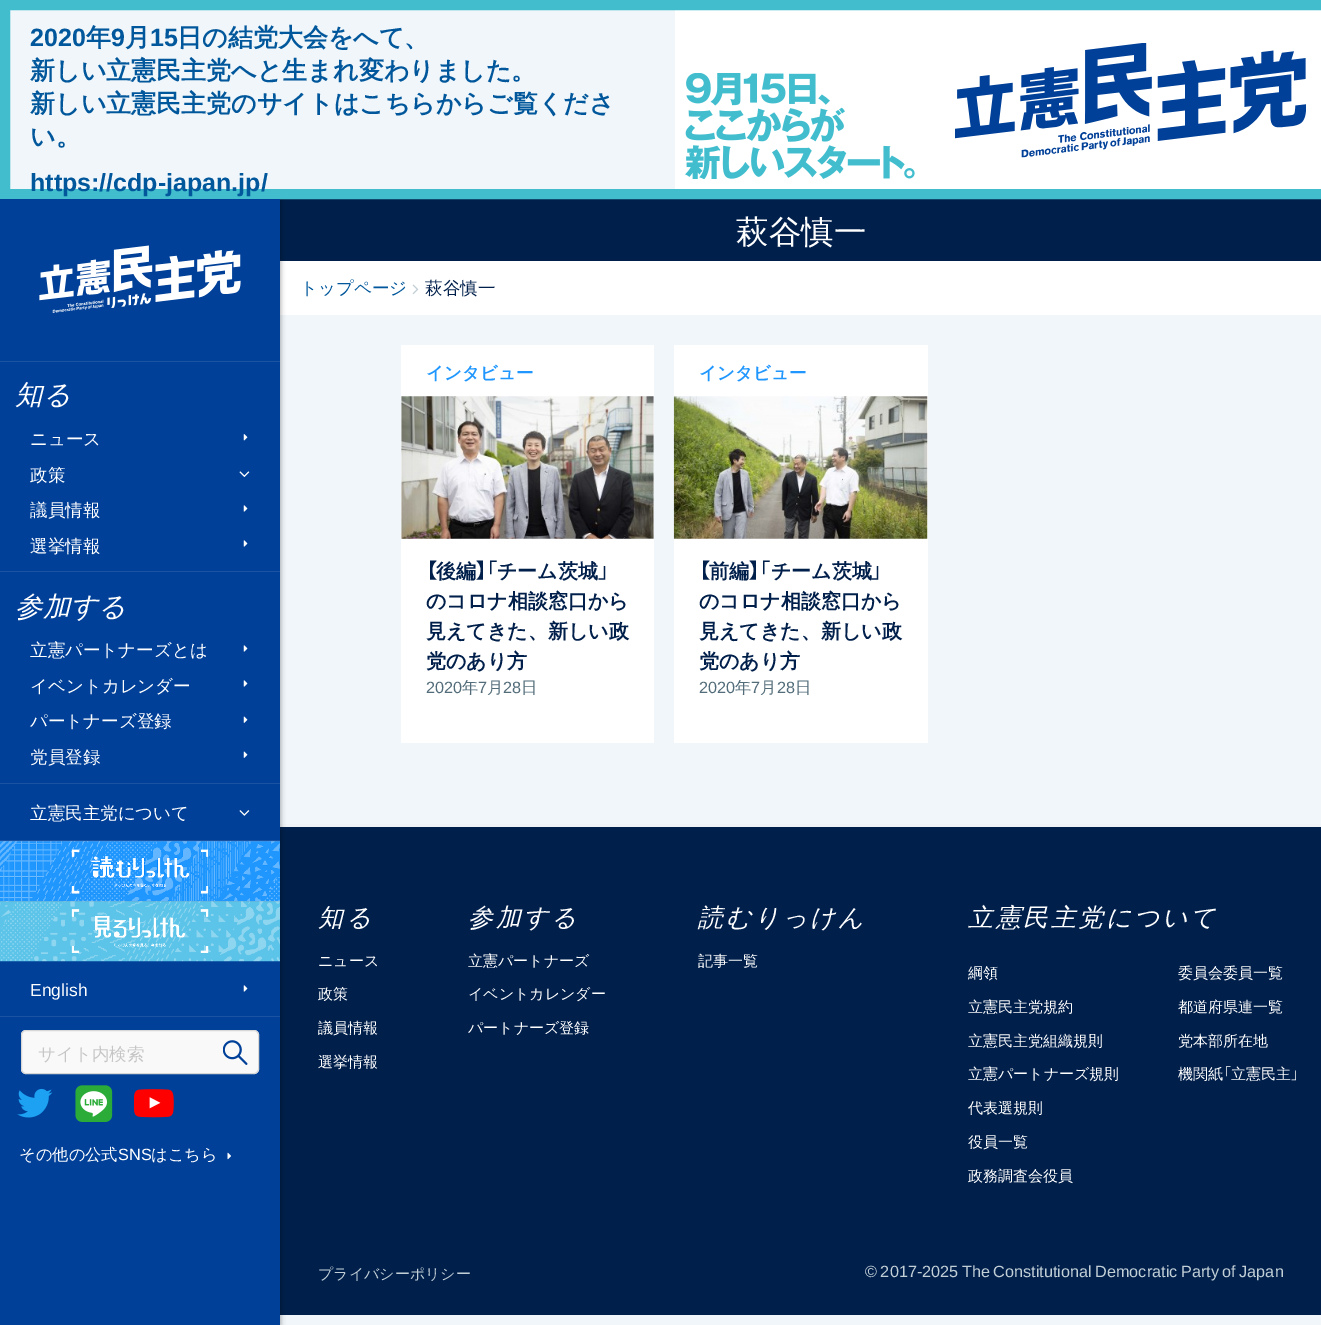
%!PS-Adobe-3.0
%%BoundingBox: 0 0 1321 1325
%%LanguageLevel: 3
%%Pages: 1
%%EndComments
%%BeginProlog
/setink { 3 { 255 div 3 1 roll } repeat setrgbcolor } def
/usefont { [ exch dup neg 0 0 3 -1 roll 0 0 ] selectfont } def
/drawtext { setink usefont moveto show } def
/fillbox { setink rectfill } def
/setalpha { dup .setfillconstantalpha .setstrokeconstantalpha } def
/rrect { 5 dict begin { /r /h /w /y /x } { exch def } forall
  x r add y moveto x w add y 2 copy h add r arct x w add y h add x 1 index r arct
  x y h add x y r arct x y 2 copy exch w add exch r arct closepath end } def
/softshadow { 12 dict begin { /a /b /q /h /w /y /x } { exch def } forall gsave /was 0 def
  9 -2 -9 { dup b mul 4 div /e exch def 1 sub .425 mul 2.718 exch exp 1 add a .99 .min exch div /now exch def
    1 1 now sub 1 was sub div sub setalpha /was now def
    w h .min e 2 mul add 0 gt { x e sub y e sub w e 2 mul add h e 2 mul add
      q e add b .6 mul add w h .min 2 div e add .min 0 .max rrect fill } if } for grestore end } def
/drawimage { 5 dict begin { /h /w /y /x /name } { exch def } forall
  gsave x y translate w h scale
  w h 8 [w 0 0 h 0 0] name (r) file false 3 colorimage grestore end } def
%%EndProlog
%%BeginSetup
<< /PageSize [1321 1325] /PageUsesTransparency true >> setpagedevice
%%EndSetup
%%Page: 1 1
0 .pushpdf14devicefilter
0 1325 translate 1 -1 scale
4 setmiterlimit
0 0 1321 1325 240 246 250 fillbox
675 10 646 179 255 255 255 fillbox
280 199 1041 62 0 31 75 fillbox
280 261 1041 54 255 255 255 fillbox
280 827 1041 488 0 31 75 fillbox
280 824 1041 3 240 243 245 fillbox
0 0 0 setink
1 199 280 1126 0 2.5 0.3 softshadow
65 189 206 setink
10 setlinewidth
5 5 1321 189 rectstroke
(2020) 30 46 /LiberationSans-Bold 25 1 87 155 drawtext
(年) 86 46 /WenQuanYiZenHei-Bold 25 1 87 155 drawtext
(9) 111 46 /LiberationSans-Bold 25 1 87 155 drawtext
(月) 125 46 /WenQuanYiZenHei-Bold 25 1 87 155 drawtext
(15) 150 46 /LiberationSans-Bold 25 1 87 155 drawtext
(日の結党大会をへて、) 177 46 /WenQuanYiZenHei-Bold 25 1 87 155 drawtext
(新しい立憲民主党へと生まれ変わりました。) 30 79 /WenQuanYiZenHei-Bold 25 1 87 155 drawtext
(新しい立憲民主党のサイトはこちらからご覧くださ) 30 112 /WenQuanYiZenHei-Bold 25 1 87 155 drawtext
(い。) 30 145 /WenQuanYiZenHei-Bold 25 1 87 155 drawtext
(https://cdp-japan.jp/) 30 191 /LiberationSans-Bold 25 1 87 155 drawtext
(assets/img1.rgb) 685 73 230 106 drawimage
(assets/img2.rgb) 955 43 351 115 drawimage
0 199 280 1126 0 64 152 fillbox
(assets/img3.rgb) 39 245 202 68 drawimage
0 361 280 1 26 83 162 fillbox
(知る) 15 404 /WenQuanYiZenHei-MediumItalic 27.5 255 255 255 drawtext
0 571 280 1 26 83 162 fillbox
(ニュース) 30 445 /WenQuanYiZenHei-Medium 17.5 255 255 255 drawtext
(assets/img4.rgb) 243 434 5 7 drawimage
(政策) 30 481 /WenQuanYiZenHei-Medium 17.5 255 255 255 drawtext
(assets/img5.rgb) 239 471 11 6 drawimage
(議員情報) 30 516 /WenQuanYiZenHei-Medium 17.5 255 255 255 drawtext
(assets/img6.rgb) 243 505 5 7 drawimage
(選挙情報) 30 552 /WenQuanYiZenHei-Medium 17.5 255 255 255 drawtext
(assets/img6.rgb) 243 540 5 7 drawimage
(参加する) 15 616 /WenQuanYiZenHei-MediumItalic 27.5 255 255 255 drawtext
0 783 280 1 26 83 162 fillbox
(立憲パートナーズとは) 30 656 /WenQuanYiZenHei-Medium 17.5 255 255 255 drawtext
(assets/img6.rgb) 243 645 5 7 drawimage
(イベントカレンダー) 30 692 /WenQuanYiZenHei-Medium 17.5 255 255 255 drawtext
(assets/img6.rgb) 243 680 5 7 drawimage
(パートナーズ登録) 30 727 /WenQuanYiZenHei-Medium 17.5 255 255 255 drawtext
(assets/img7.rgb) 243 716 5 7 drawimage
(党員登録) 30 763 /WenQuanYiZenHei-Medium 17.5 255 255 255 drawtext
(assets/img7.rgb) 243 751 5 7 drawimage
0 840 280 1 26 83 162 fillbox
(立憲民主党について) 30 819 /WenQuanYiZenHei-Medium 17.5 255 255 255 drawtext
(assets/img8.rgb) 239 810 11 6 drawimage
(assets/img9.rgb) 0 841 280 61 drawimage
(assets/img10.rgb) 0 901 280 61 drawimage
0 1016 280 1 26 83 162 fillbox
(English) 30 996 /LiberationSans-Regular 17.5 255 255 255 drawtext
(assets/img6.rgb) 243 985 5 7 drawimage
249 249 249 setink
21 1030 238 44 5 rrect fill
(assets/img11.rgb) 223 1040 25 25 drawimage
215 215 215 setink
1 setlinewidth
21.5 1030.5 237 43 4.5 rrect stroke
(サイト内検索) 38 1060 /WenQuanYiZenHei-Medium 17.5 198 198 198 drawtext
(assets/img12.rgb) 17 1088 36 30 drawimage
(assets/img13.rgb) 75 1085 38 37 drawimage
149 1097 12 12 255 255 255 fillbox
(assets/img14.rgb) 134 1089 40 29 drawimage
(その他の公式) 19 1160 /WenQuanYiZenHei-Medium 16.25 255 255 255 drawtext
(SNS) 118 1160 /LiberationSans-Regular 16.25 255 255 255 drawtext
(はこちら) 151 1160 /WenQuanYiZenHei-Medium 16.25 255 255 255 drawtext
(assets/img15.rgb) 227 1152 4 8 drawimage
(萩谷慎一) 736 243 /WenQuanYiZenHei-Medium 32.5 255 255 255 drawtext
(トップページ) 300 294 /WenQuanYiZenHei-Medium 17.5 1 87 155 drawtext
(assets/img16.rgb) 412 284 7 11 drawimage
(萩谷慎一) 425 294 /WenQuanYiZenHei-Medium 17.5 0 31 75 drawtext
401 345 253 398 255 255 255 fillbox
(インタビュー) 426 379 /WenQuanYiZenHei-Bold 17.5 32 151 255 drawtext
(assets/img17.rgb) 401 396 253 143 drawimage
(【) 426 578 /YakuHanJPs-Bold 20 0 31 75 drawtext
(後編) 436 578 /WenQuanYiZenHei-Bold 20 0 31 75 drawtext
(】「) 476 578 /YakuHanJPs-Bold 20 0 31 75 drawtext
(チーム茨城) 497 578 /WenQuanYiZenHei-Bold 20 0 31 75 drawtext
(」) 598 578 /YakuHanJPs-Bold 20 0 31 75 drawtext
(のコロナ相談窓口から) 426 608 /WenQuanYiZenHei-Bold 20 0 31 75 drawtext
(見えてきた、新しい政) 426 638 /WenQuanYiZenHei-Bold 20 0 31 75 drawtext
(党のあり方) 426 668 /WenQuanYiZenHei-Bold 20 0 31 75 drawtext
(2020) 426 693 /LiberationSans-Regular 16.25 83 108 121 drawtext
(年) 462 693 /WenQuanYiZenHei-Medium 16.25 83 108 121 drawtext
(7) 478 693 /LiberationSans-Regular 16.25 83 108 121 drawtext
(月) 487 693 /WenQuanYiZenHei-Medium 16.25 83 108 121 drawtext
(28) 503 693 /LiberationSans-Regular 16.25 83 108 121 drawtext
(日) 521 693 /WenQuanYiZenHei-Medium 16.25 83 108 121 drawtext
674 345 254 398 255 255 255 fillbox
(インタビュー) 699 379 /WenQuanYiZenHei-Bold 17.5 32 151 255 drawtext
(assets/img18.rgb) 673 396 255 143 drawimage
(【) 699 578 /YakuHanJPs-Bold 20 0 31 75 drawtext
(前編) 709 578 /WenQuanYiZenHei-Bold 20 0 31 75 drawtext
(】「) 749 578 /YakuHanJPs-Bold 20 0 31 75 drawtext
(チーム茨城) 771 578 /WenQuanYiZenHei-Bold 20 0 31 75 drawtext
(」) 871 578 /YakuHanJPs-Bold 20 0 31 75 drawtext
(のコロナ相談窓口から) 699 608 /WenQuanYiZenHei-Bold 20 0 31 75 drawtext
(見えてきた、新しい政) 699 638 /WenQuanYiZenHei-Bold 20 0 31 75 drawtext
(党のあり方) 699 668 /WenQuanYiZenHei-Bold 20 0 31 75 drawtext
(2020) 699 693 /LiberationSans-Regular 16.25 83 108 121 drawtext
(年) 735 693 /WenQuanYiZenHei-Medium 16.25 83 108 121 drawtext
(7) 751 693 /LiberationSans-Regular 16.25 83 108 121 drawtext
(月) 760 693 /WenQuanYiZenHei-Medium 16.25 83 108 121 drawtext
(28) 777 693 /LiberationSans-Regular 16.25 83 108 121 drawtext
(日) 795 693 /WenQuanYiZenHei-Medium 16.25 83 108 121 drawtext
/WenQuanYiZenHei-MediumItalic 25 usefont
255 255 255 setink
318 926 moveto 2.5 0 (知る) ashow
(ニュース) 318 966 /WenQuanYiZenHei-Medium 15 255 255 255 drawtext
(政策) 318 999 /WenQuanYiZenHei-Medium 15 255 255 255 drawtext
(議員情報) 318 1033 /WenQuanYiZenHei-Medium 15 255 255 255 drawtext
(選挙情報) 318 1067 /WenQuanYiZenHei-Medium 15 255 255 255 drawtext
/WenQuanYiZenHei-MediumItalic 25 usefont
468 926 moveto 2.5 0 (参加する) ashow
(立憲パートナーズ) 468 966 /WenQuanYiZenHei-Medium 15 255 255 255 drawtext
(イベントカレンダー) 468 999 /WenQuanYiZenHei-Medium 15 255 255 255 drawtext
(パートナーズ登録) 468 1033 /WenQuanYiZenHei-Medium 15 255 255 255 drawtext
/WenQuanYiZenHei-MediumItalic 25 usefont
698 926 moveto 2.5 0 (読むりっけん) ashow
(記事一覧) 698 966 /WenQuanYiZenHei-Medium 15 255 255 255 drawtext
/WenQuanYiZenHei-MediumItalic 25 usefont
968 926 moveto 2.5 0 (立憲民主党について) ashow
(綱領) 968 978 /WenQuanYiZenHei-Medium 15 255 255 255 drawtext
(立憲民主党規約) 968 1012 /WenQuanYiZenHei-Medium 15 255 255 255 drawtext
(立憲民主党組織規則) 968 1046 /WenQuanYiZenHei-Medium 15 255 255 255 drawtext
(立憲パートナーズ規則) 968 1079 /WenQuanYiZenHei-Medium 15 255 255 255 drawtext
(代表選規則) 968 1113 /WenQuanYiZenHei-Medium 15 255 255 255 drawtext
(役員一覧) 968 1147 /WenQuanYiZenHei-Medium 15 255 255 255 drawtext
(政務調査会役員) 968 1181 /WenQuanYiZenHei-Medium 15 255 255 255 drawtext
(委員会委員一覧) 1178 978 /WenQuanYiZenHei-Medium 15 255 255 255 drawtext
(都道府県連一覧) 1178 1012 /WenQuanYiZenHei-Medium 15 255 255 255 drawtext
(党本部所在地) 1178 1046 /WenQuanYiZenHei-Medium 15 255 255 255 drawtext
(機関紙) 1178 1079 /WenQuanYiZenHei-Medium 15 255 255 255 drawtext
(「) 1223 1079 /YakuHanJPs-Light 15 255 255 255 drawtext
(立憲民主) 1231 1079 /WenQuanYiZenHei-Medium 15 255 255 255 drawtext
(」) 1291 1079 /YakuHanJPs-Light 15 255 255 255 drawtext
(プライバシーポリシー) 318 1279 /WenQuanYiZenHei-Medium 15 194 207 214 drawtext
/LiberationSans-Regular 16.25 usefont
865 1277 moveto -1 0 32 (© 2017-2025 The Constitutional Democratic Party of Japan) widthshow
.poppdf14devicefilter showpage
%%EOF
